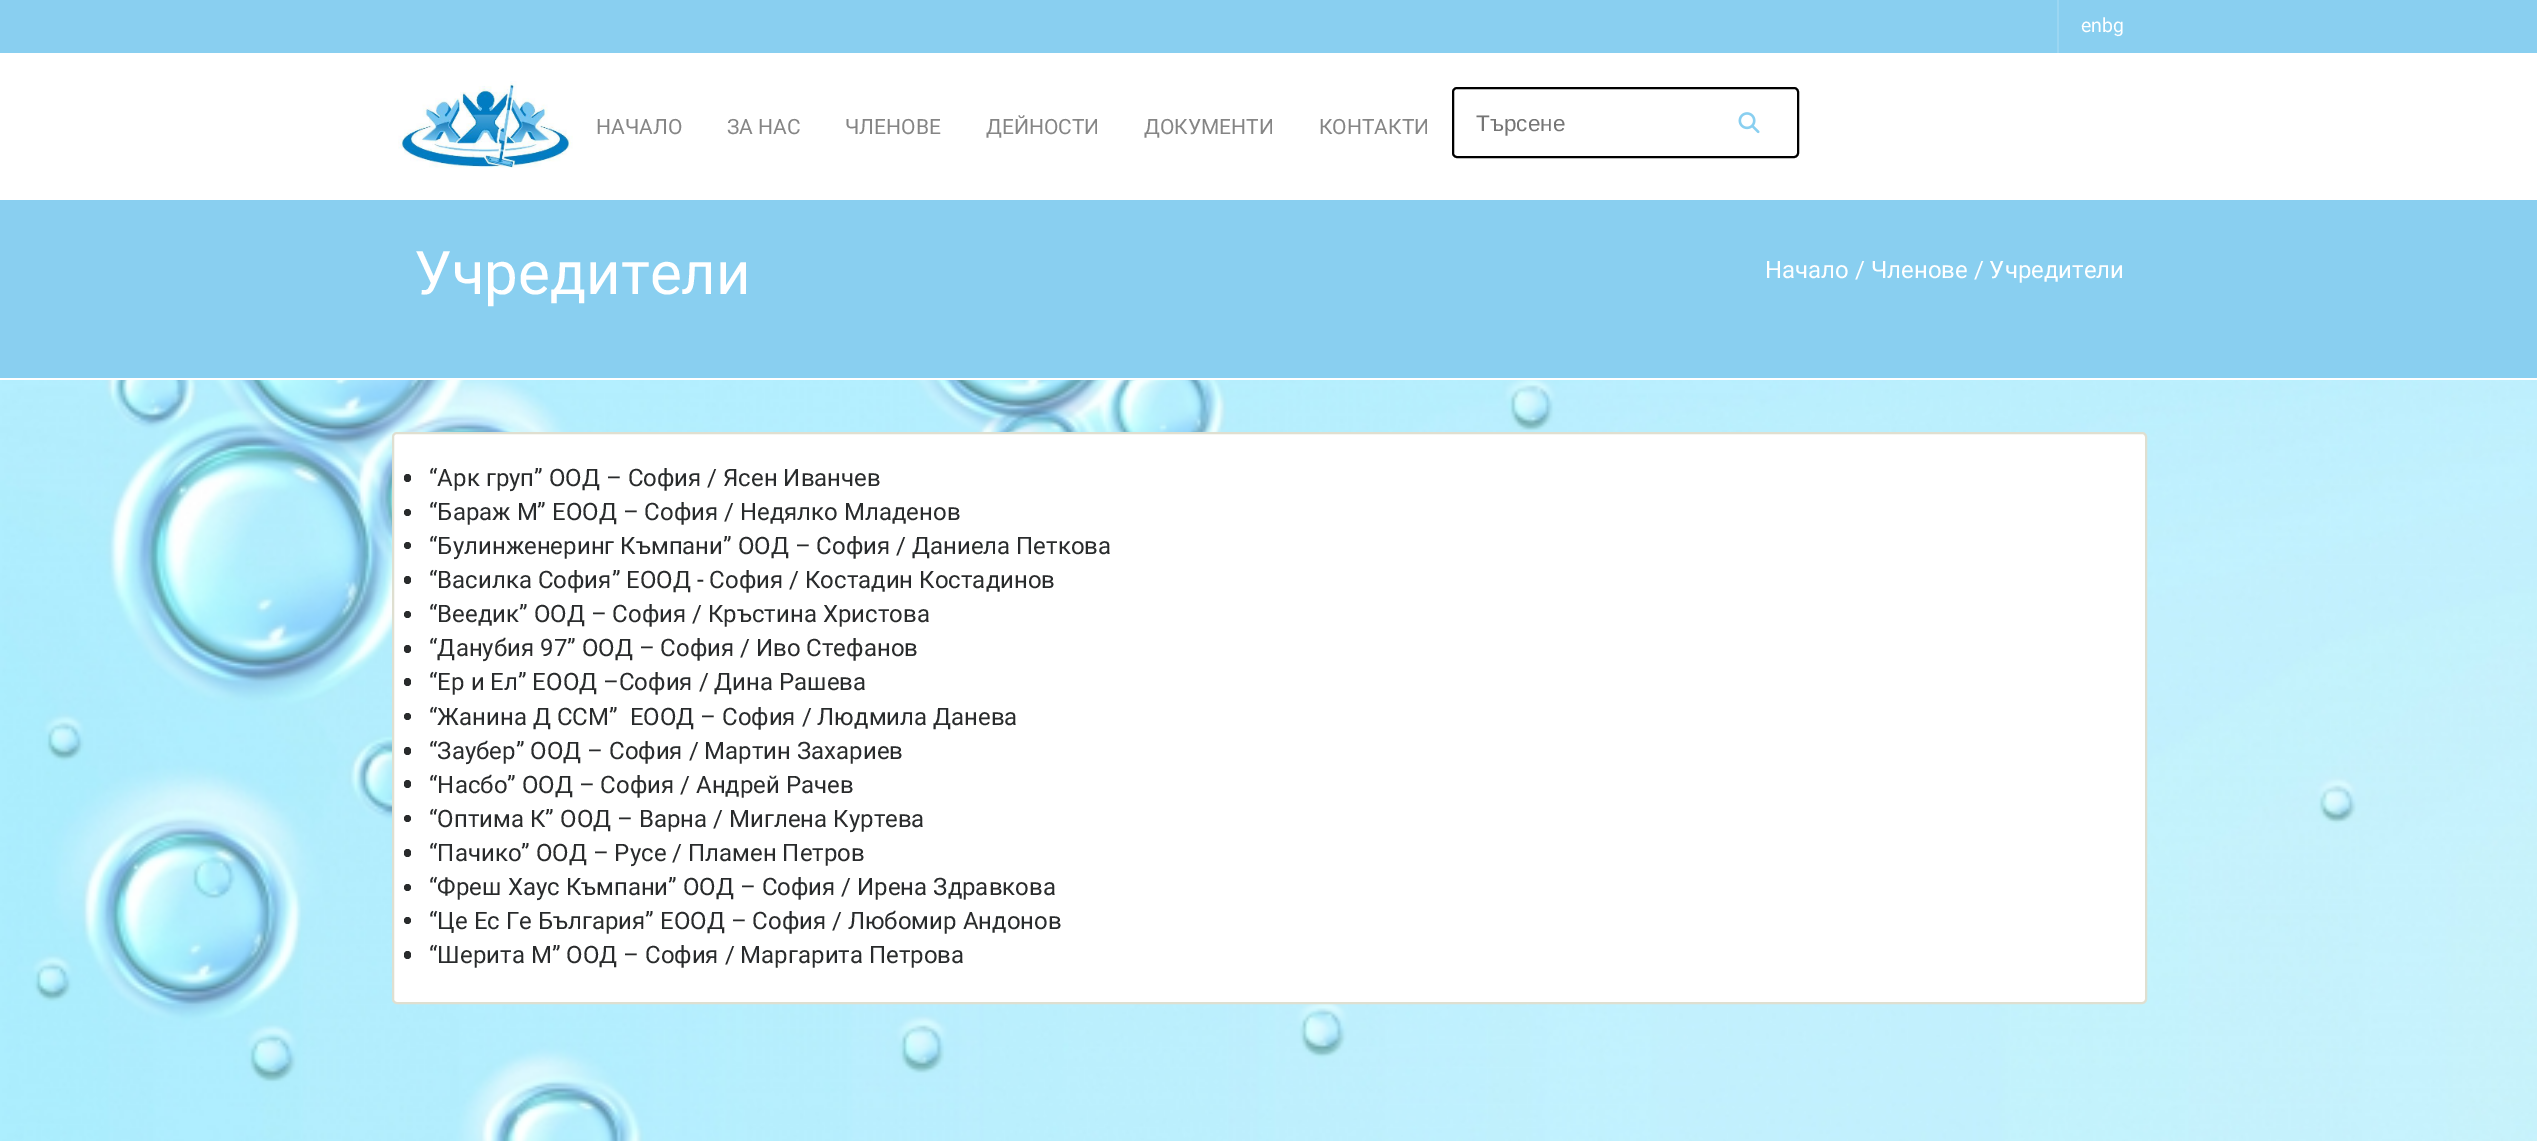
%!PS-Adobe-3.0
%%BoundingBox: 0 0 2537 1141
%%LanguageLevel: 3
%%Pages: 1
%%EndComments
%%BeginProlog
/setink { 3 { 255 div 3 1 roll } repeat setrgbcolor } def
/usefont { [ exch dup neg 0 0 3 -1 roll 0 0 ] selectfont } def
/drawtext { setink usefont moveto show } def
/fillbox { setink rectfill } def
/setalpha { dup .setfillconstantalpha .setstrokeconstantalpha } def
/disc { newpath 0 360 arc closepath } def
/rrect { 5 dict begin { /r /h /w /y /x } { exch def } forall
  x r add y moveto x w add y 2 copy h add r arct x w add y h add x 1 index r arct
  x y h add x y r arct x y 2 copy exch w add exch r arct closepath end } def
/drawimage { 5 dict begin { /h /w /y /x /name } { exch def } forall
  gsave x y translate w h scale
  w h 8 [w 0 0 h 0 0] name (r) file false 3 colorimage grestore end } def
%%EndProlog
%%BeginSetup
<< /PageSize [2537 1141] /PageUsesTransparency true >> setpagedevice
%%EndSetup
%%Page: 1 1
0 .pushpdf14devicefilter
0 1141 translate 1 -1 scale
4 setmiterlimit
0 0 2537 1141 255 255 255 fillbox
(assets/img1.rgb) 0 380 2537 761 drawimage
0 0 2537 53 137 207 240 fillbox
0.15 setalpha
2057 0 2 53 255 255 255 fillbox
1 setalpha
(enbg) 2081 32 /Roboto-Regular 19.5 255 255 255 drawtext
(assets/img2.rgb) 398 81 175 87 drawimage
(НАЧАЛО) 596 134 /Roboto-Regular 21 133 133 133 drawtext
(ЗА НАС) 727 134 /Roboto-Regular 21 133 133 133 drawtext
(ЧЛЕНОВЕ) 845 134 /Roboto-Regular 21 133 133 133 drawtext
(ДЕЙНОСТИ) 986 134 /Roboto-Regular 21 133 133 133 drawtext
(ДОКУМЕНТИ) 1144 134 /Roboto-Regular 21 133 133 133 drawtext
(КОНТАКТИ) 1319 134 /Roboto-Regular 21 133 133 133 drawtext
0 0 0 setink
2 setlinewidth
1453 88 345 69 4 rrect stroke
(Търсене) 1476 131 /LiberationSans-Regular 22.5 117 117 117 drawtext
(assets/img3.rgb) 1738 112 22 22 drawimage
0 200 2537 178 137 207 240 fillbox
(Учредители) 414 294 /Roboto-Regular 60 255 255 255 drawtext
(Начало / Членове / Учредители) 1765 278 /Roboto-Regular 24 255 255 255 drawtext
393 433 1753 570 4 rrect gsave fill grestore
223 223 208 setink
stroke
41 43 44 setink
404 474 7 8 3.5 rrect fill
(“Арк груп” ООД – София / Ясен Иванчев) 429 486 /Roboto-Regular 24 41 43 44 drawtext
407.5 512.5 3.5 disc fill
(“Бараж М” ЕООД – София / Недялко Младенов) 429 520 /Roboto-Regular 24 41 43 44 drawtext
407.5 545.5 3.5 disc fill
(“Булинженеринг Къмпани” ООД – София / Даниела Петкова) 429 554 /Roboto-Regular 24 41 43 44 drawtext
404 576 7 8 3.5 rrect fill
(“Василка София” ЕООД - София / Костадин Костадинов) 429 588 /Roboto-Regular 24 41 43 44 drawtext
407.5 614.5 3.5 disc fill
(“Веедик” ООД – София / Кръстина Христова) 429 622 /Roboto-Regular 24 41 43 44 drawtext
404 645 7 8 3.5 rrect fill
(“Данубия 97” ООД – София / Иво Стефанов) 429 656 /Roboto-Regular 24 41 43 44 drawtext
404 678 7 8 3.5 rrect fill
(“Ер и Ел” ЕООД –София / Дина Рашева) 429 690 /Roboto-Regular 24 41 43 44 drawtext
407.5 716.5 3.5 disc fill
(“Жанина Д ССМ”  ЕООД – София / Людмила Данева) 429 725 /Roboto-Regular 24 41 43 44 drawtext
404 747 7 8 3.5 rrect fill
(“Заубер” ООД – София / Мартин Захариев) 429 759 /Roboto-Regular 24 41 43 44 drawtext
404 780 7 8 3.5 rrect fill
(“Насбо” ООД – София / Андрей Рачев) 429 793 /Roboto-Regular 24 41 43 44 drawtext
407.5 818.5 3.5 disc fill
(“Оптима К” ООД – Варна / Миглена Куртева) 429 827 /Roboto-Regular 24 41 43 44 drawtext
404 849 7 8 3.5 rrect fill
(“Пачико” ООД – Русе / Пламен Петров) 429 861 /Roboto-Regular 24 41 43 44 drawtext
407.5 887.5 3.5 disc fill
(“Фреш Хаус Къмпани” ООД – София / Ирена Здравкова) 429 895 /Roboto-Regular 24 41 43 44 drawtext
407.5 920.5 3.5 disc fill
(“Це Ес Ге България” ЕООД – София / Любомир Андонов) 429 929 /Roboto-Regular 24 41 43 44 drawtext
404 951 7 8 3.5 rrect fill
(“Шерита М” ООД – София / Маргарита Петрова) 429 963 /Roboto-Regular 24 41 43 44 drawtext
.poppdf14devicefilter showpage
%%EOF
